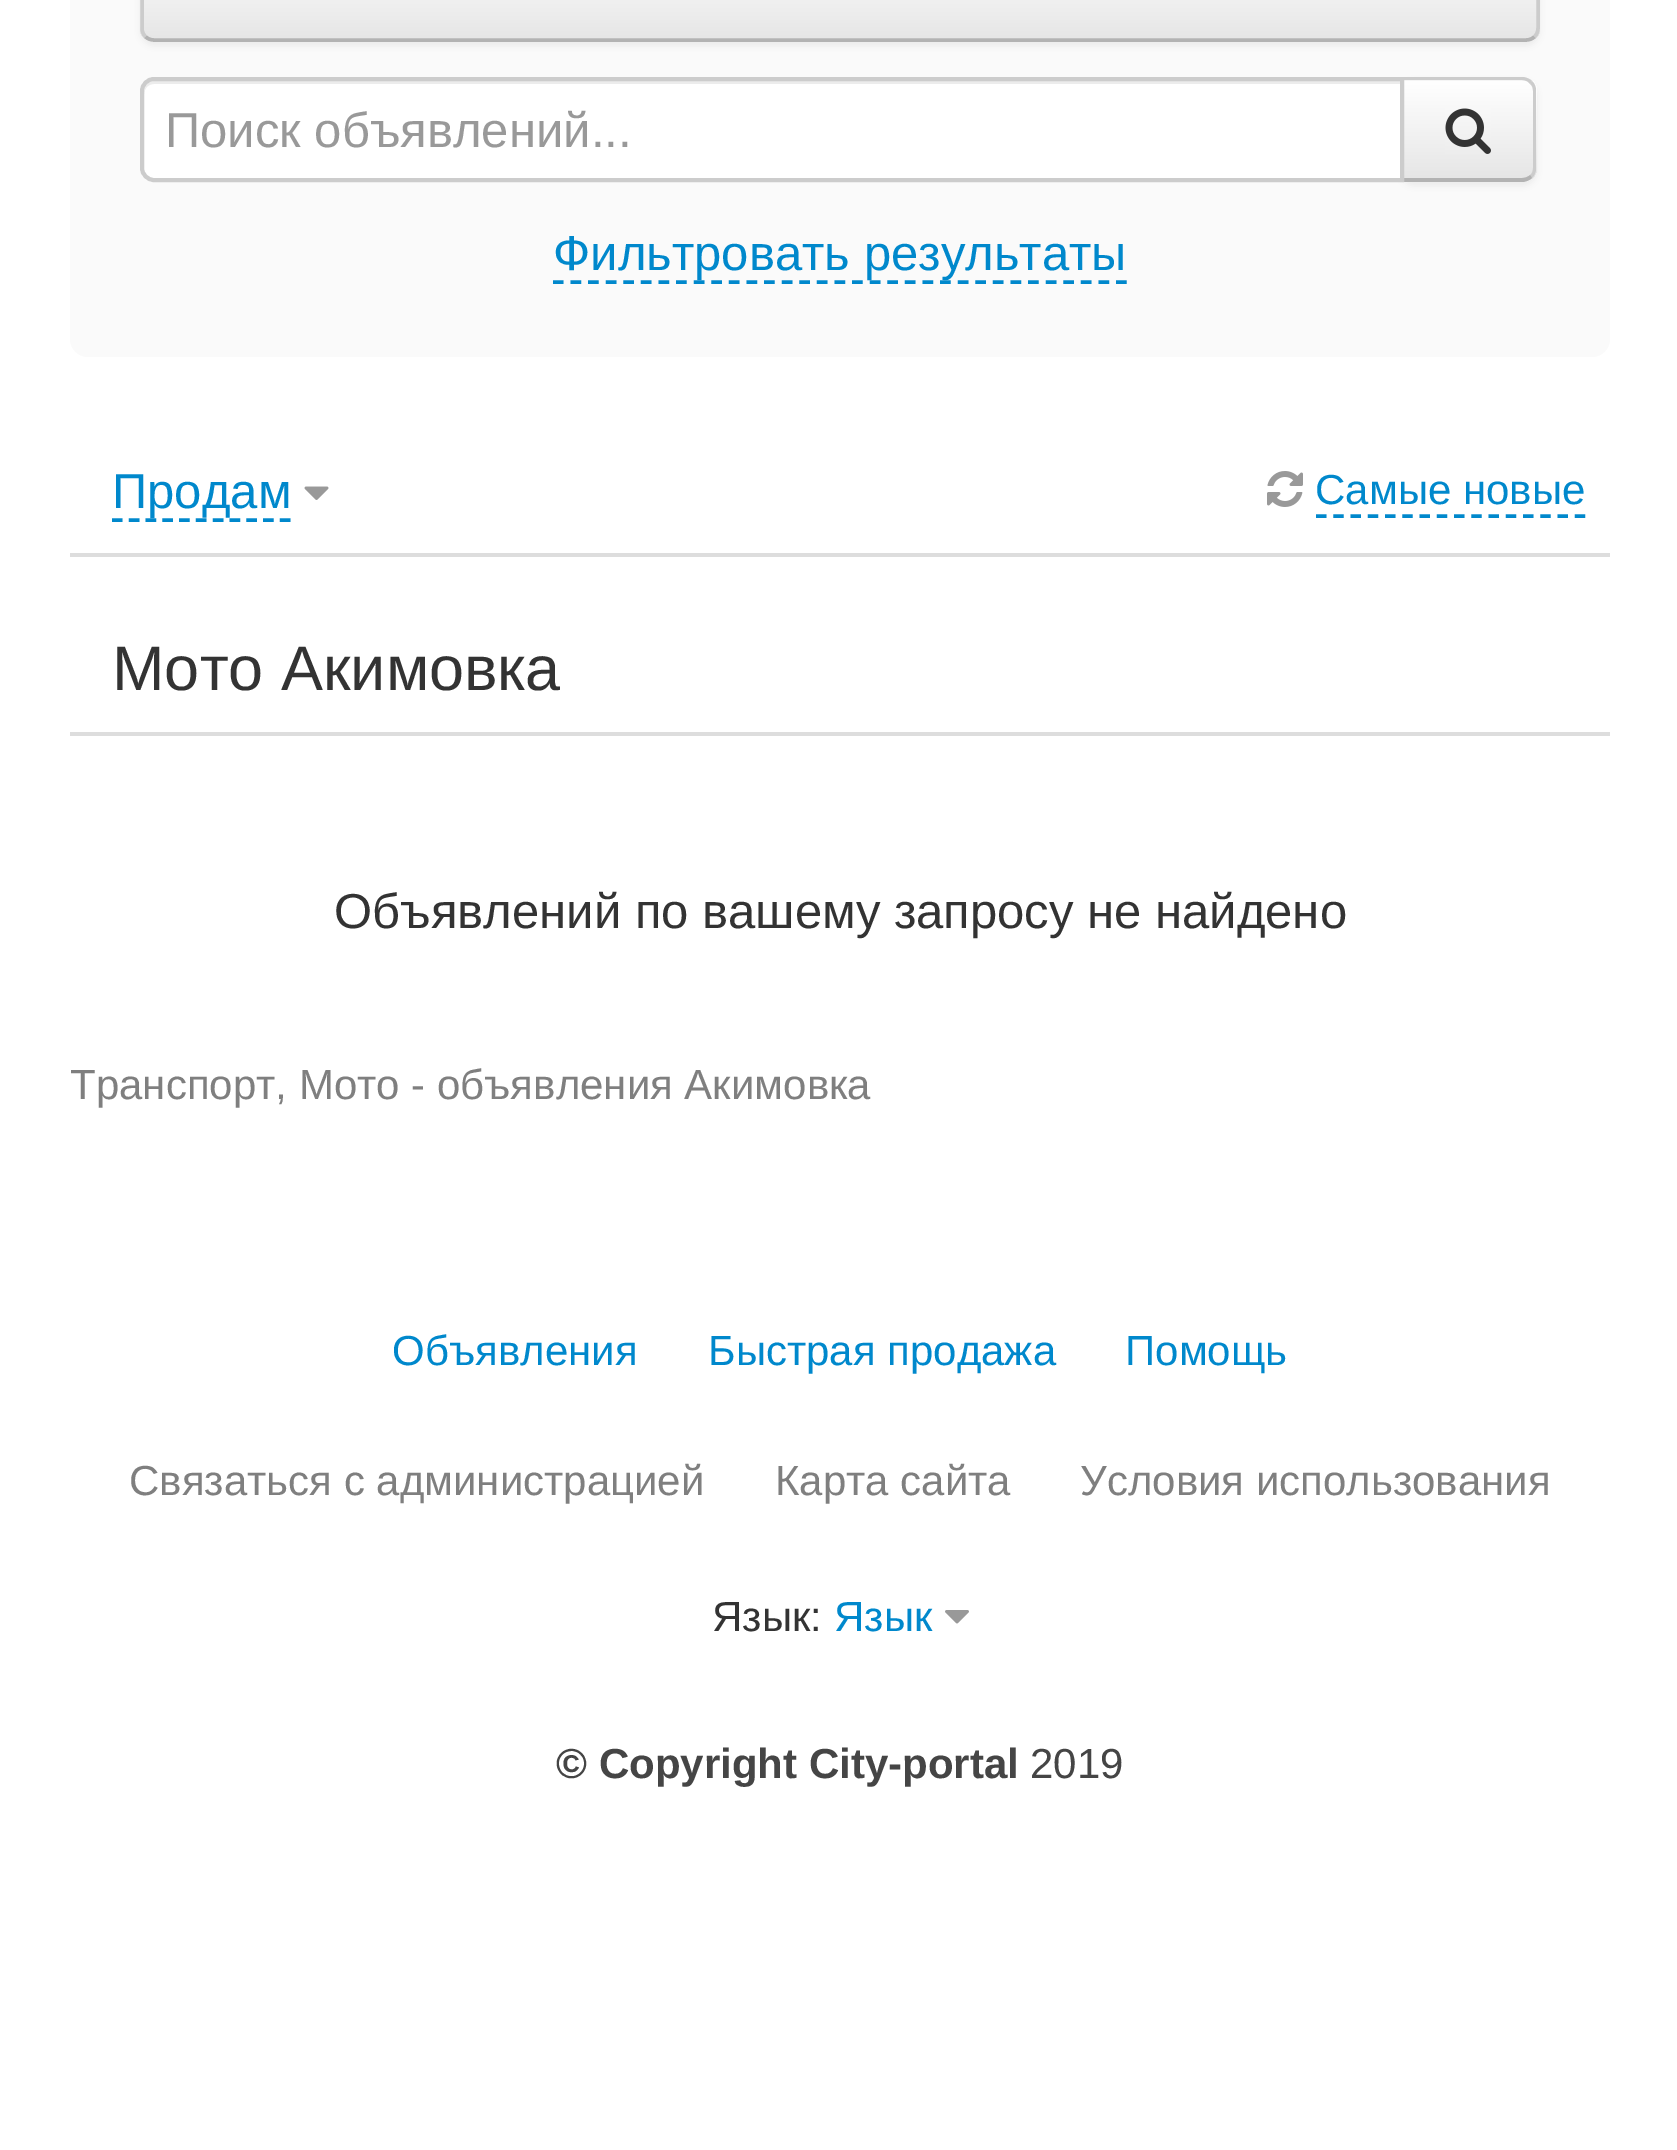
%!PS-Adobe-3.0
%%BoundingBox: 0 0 1677 2150
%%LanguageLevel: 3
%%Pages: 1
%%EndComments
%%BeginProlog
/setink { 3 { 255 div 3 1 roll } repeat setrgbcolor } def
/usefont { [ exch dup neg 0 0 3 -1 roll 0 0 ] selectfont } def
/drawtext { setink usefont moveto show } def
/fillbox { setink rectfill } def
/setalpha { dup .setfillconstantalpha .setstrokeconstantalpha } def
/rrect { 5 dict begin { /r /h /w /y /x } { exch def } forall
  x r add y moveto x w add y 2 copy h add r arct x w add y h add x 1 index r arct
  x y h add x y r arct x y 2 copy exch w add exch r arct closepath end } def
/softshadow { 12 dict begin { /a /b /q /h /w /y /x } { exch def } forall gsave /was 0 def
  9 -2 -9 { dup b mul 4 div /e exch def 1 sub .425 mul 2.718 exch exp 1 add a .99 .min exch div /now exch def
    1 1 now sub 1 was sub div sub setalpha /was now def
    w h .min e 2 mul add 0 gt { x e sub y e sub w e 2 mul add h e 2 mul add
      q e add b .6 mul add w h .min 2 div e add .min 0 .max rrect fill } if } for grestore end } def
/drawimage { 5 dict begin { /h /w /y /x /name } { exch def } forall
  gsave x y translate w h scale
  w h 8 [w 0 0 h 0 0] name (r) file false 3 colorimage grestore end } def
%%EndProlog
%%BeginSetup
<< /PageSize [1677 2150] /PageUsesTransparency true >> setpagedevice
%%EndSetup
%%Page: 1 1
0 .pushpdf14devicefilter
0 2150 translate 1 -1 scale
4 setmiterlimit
0 0 1677 2150 255 255 255 fillbox
250 250 250 setink
70 -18 1540 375 18 rrect fill
0 0 0 setink
140 -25 1400 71 14 3.5 0.05 softshadow
245 245 245 setink
140 -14 1400 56 14 rrect fill
gsave
140 -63 1400 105 14 rrect clip newpath
gsave 140 0 moveto 1540 0 lineto 1540 39 lineto 140 39 lineto closepath clip newpath
<< /ShadingType 2 /ColorSpace /DeviceRGB /Coords [840 -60 840 39] /Extend [true true] /Function << /FunctionType 2 /Domain [0 1] /C0 [1 1 1] /C1 [0.902 0.902 0.902] /N 1 >> >> shfill grestore
grestore
179 179 179 setink
3.5 setlinewidth
1534.5 36.5 moveto 1532.5 39 1529 40 1526 40 curveto 154 40 lineto 151 40 147.5 39 145.5 36.5 curveto stroke
204 204 204 setink
145.5 36.5 moveto 143 34.5 142 31 142 28 curveto 142 -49 lineto 142 -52 143 -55.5 145.5 -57.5 curveto 147.5 -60 151 -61 154 -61 curveto 1526 -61 lineto 1529 -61 1532.5 -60 1534.5 -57.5 curveto 1537 -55.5 1538 -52 1538 -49 curveto 1538 28 lineto 1538 31 1537 34.5 1534.5 36.5 curveto stroke
0 0 0 setink
1400 81 137 105 14 3.5 0.05 softshadow
245 245 245 setink
1400 77 moveto 1523 77 lineto 1530.5 77 1537 83.5 1537 91 curveto 1537 168 lineto 1537 175.5 1530.5 182 1523 182 curveto 1400 182 lineto closepath fill
gsave
1400 77 moveto 1523 77 lineto 1530.5 77 1537 83.5 1537 91 curveto 1537 168 lineto 1537 175.5 1530.5 182 1523 182 curveto 1400 182 lineto closepath clip newpath
gsave 1404 81 moveto 1537 81 lineto 1537 179 lineto 1404 179 lineto closepath clip newpath
<< /ShadingType 2 /ColorSpace /DeviceRGB /Coords [1468 81 1468 179] /Extend [true true] /Function << /FunctionType 2 /Domain [0 1] /C0 [1 1 1] /C1 [0.902 0.902 0.902] /N 1 >> >> shfill grestore
grestore
204 204 204 setink
1400 77 moveto 1404 81 lineto 1404 80 lineto 1522 80 lineto 1525 80 1528 81 1530 84 curveto 1532 81 lineto 1530 79 1526 77 1522 77 curveto closepath fill
1532 81 moveto 1535 84 1536 87 1536 91 curveto 1536 168 lineto 1536 172 1535 175 1532 178 curveto 1530 175 lineto 1532 174 1533 171 1533 168 curveto 1533 91 lineto 1533 88 1532 85 1530 84 curveto closepath fill
179 179 179 setink
1522 182 moveto 1526 182 1530 180 1532 178 curveto 1530 175 lineto 1528 177 1525 178 1522 178 curveto 1404 178 lineto 1400 182 lineto closepath fill
255 255 255 setink
154 77 moveto 1404 77 lineto 1404 182 lineto 154 182 lineto 146.5 182 140 175.5 140 168 curveto 140 91 lineto 140 83.5 146.5 77 154 77 curveto closepath fill
236 236 236 setink
154 84 moveto 1400 84 lineto 1400 81 lineto 155 81 lineto 148 81 144 87 144 94 curveto 144 89 148 84 154 84 curveto closepath fill
204 204 204 setink
4 setlinewidth
154 79 moveto 1402 79 lineto 1402 180 lineto 154 180 lineto 147.5 180 142 174.5 142 168 curveto 142 91 lineto 142 84.5 147.5 79 154 79 curveto closepath stroke
(Поиск объявлений...) 165 147 /LiberationSans-Regular 49 153 153 153 drawtext
(assets/img1.rgb) 1445 108 46 46 drawimage
0 136 204 setink
3.5 setlinewidth
[10.5 7.1] 0 setdash
553 282 moveto 1127 282 lineto stroke
(Фильтровать результаты) 553 270 /LiberationSans-Regular 49 0 136 204 drawtext
70 553 1540 4 221 221 221 fillbox
0 136 204 setink
[10.5 6.3] 0 setdash
112 520 moveto 290.5 520 lineto stroke
(Продам) 112 508 /LiberationSans-Regular 49 0 136 204 drawtext
(assets/img2.rgb) 304 486 25 14 drawimage
(assets/img3.rgb) 1267 471 36 36 drawimage
(Самые новые) 1315 504 /LiberationSans-Regular 42 0 136 204 drawtext
[10.5 6.75] 0 setdash
1316 516 moveto 1585.5 516 lineto stroke
70 732 1540 4 221 221 221 fillbox
(Мото Акимовка) 112 690 /LiberationSans-Regular 63 51 51 51 drawtext
(Объявлений по вашему запросу не найдено) 334 928 /LiberationSans-Regular 49 51 51 51 drawtext
(Транспорт, Мото - объявления Акимовка) 70 1099 /LiberationSans-Regular 42 127 127 127 drawtext
(Объявления) 392 1365 /LiberationSans-Regular 42 0 136 204 drawtext
(Быстрая продажа) 708 1365 /LiberationSans-Regular 42 0 136 204 drawtext
(Помощь) 1125 1365 /LiberationSans-Regular 42 0 136 204 drawtext
(Связаться с администрацией) 129 1495 /LiberationSans-Regular 42 127 127 127 drawtext
(Карта сайта) 775 1495 /LiberationSans-Regular 42 127 127 127 drawtext
(Условия использования) 1080 1495 /LiberationSans-Regular 42 127 127 127 drawtext
(Язык:) 712 1631 /LiberationSans-Regular 42 51 51 51 drawtext
(Язык) 834 1631 /LiberationSans-Regular 42 0 136 204 drawtext
(assets/img4.rgb) 945 1610 24 14 drawimage
(© Copyright City-portal) 556 1778 /LiberationSans-Bold 42 69 69 69 drawtext
(2019) 1030 1778 /LiberationSans-Regular 42 69 69 69 drawtext
.poppdf14devicefilter showpage
%%EOF
